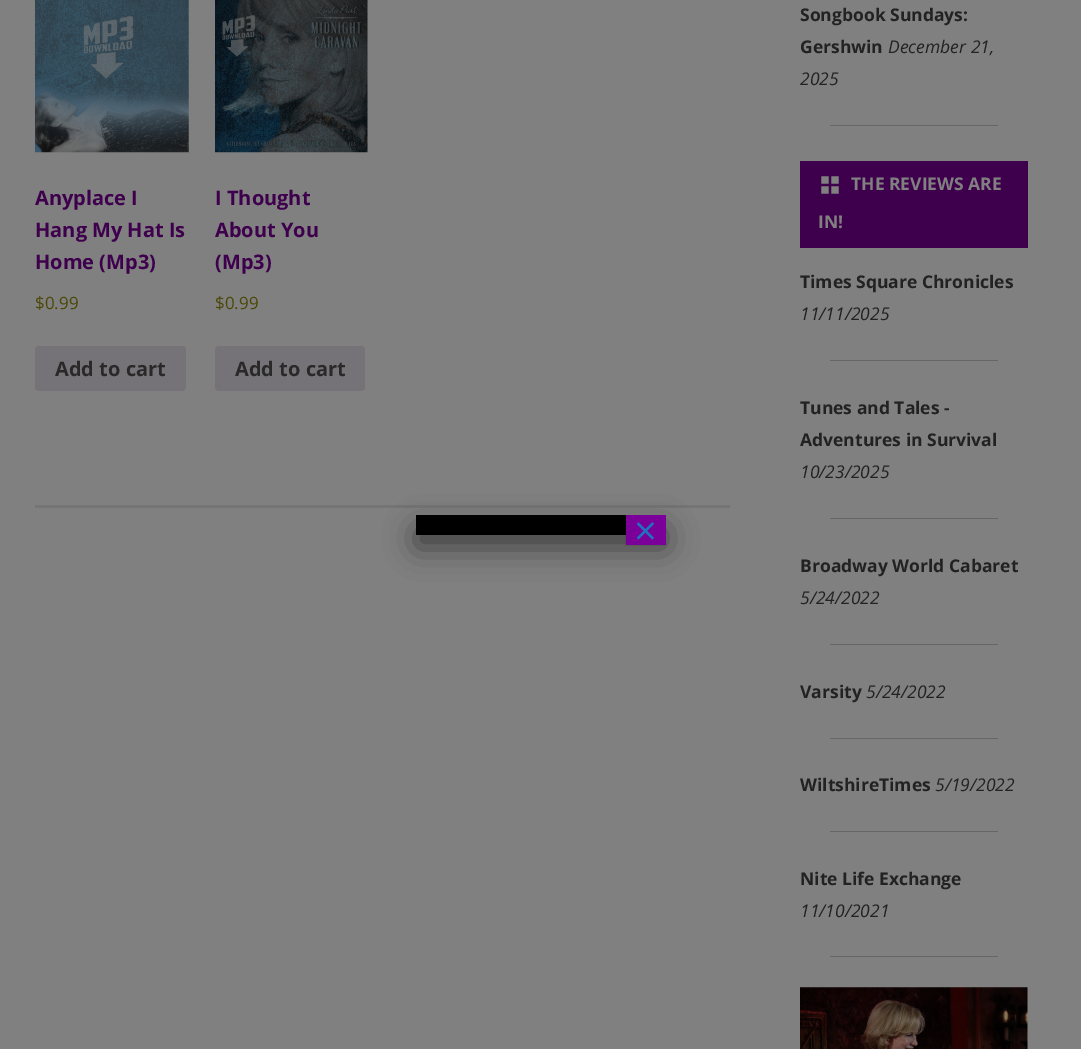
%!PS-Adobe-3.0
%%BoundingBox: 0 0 1081 1049
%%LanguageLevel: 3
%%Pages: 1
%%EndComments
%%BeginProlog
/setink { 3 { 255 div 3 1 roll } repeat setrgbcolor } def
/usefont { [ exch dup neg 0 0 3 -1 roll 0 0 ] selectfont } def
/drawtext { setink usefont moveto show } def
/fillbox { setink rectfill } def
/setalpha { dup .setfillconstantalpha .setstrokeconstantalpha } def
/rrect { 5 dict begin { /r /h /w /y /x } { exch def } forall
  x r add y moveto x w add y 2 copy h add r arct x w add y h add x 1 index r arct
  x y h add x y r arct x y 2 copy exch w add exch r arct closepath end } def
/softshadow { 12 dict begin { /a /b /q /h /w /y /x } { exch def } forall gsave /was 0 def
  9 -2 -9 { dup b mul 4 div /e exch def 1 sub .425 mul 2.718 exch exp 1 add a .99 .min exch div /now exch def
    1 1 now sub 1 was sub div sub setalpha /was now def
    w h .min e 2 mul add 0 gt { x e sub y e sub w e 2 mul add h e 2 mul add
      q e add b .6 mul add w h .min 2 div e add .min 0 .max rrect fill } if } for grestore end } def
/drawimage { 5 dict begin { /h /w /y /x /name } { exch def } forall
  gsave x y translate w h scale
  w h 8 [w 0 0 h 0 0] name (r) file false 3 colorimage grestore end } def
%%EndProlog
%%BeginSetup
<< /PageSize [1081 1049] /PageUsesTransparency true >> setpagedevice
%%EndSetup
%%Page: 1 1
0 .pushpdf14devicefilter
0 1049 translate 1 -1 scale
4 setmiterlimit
0 0 1081 1049 128 128 128 fillbox
(assets/img1.rgb) 35 0 154 153 drawimage
(Anyplace I) 35 205 /OpenSans-Bold 20 62 0 77 drawtext
(Hang My Hat Is) 35 237 /OpenSans-Bold 20 62 0 77 drawtext
(Home \(Mp3\)) 35 269 /OpenSans-Bold 20 62 0 77 drawtext
($0.99) 35 309 /OpenSans-Regular 17 75 71 5 drawtext
117 115 119 setink
35 346 151 45 4 rrect fill
(Add to cart) 55 376 /OpenSans-Bold 20 41 41 41 drawtext
(assets/img2.rgb) 215 0 153 153 drawimage
(I Thought) 215 205 /OpenSans-Bold 20 62 0 77 drawtext
(About You) 215 237 /OpenSans-Bold 20 62 0 77 drawtext
(\(Mp3\)) 215 269 /OpenSans-Bold 20 62 0 77 drawtext
($0.99) 215 309 /OpenSans-Regular 17 75 71 5 drawtext
117 115 119 setink
215 346 150 45 4 rrect fill
(Add to cart) 235 376 /OpenSans-Bold 20 41 41 41 drawtext
35 505 695 3 117 117 117 fillbox
(Songbook Sundays:) 800 21 /OpenSans-Bold 17.5 34 34 34 drawtext
(Gershwin) 800 53 /OpenSans-Bold 17.5 34 34 34 drawtext
(December 21,) 888 53 /OpenSans-Italic 17.5 34 34 34 drawtext
(2025) 800 85 /OpenSans-Italic 17.5 34 34 34 drawtext
830 125 168 1 102 102 102 fillbox
800 161 228 87 62 0 77 fillbox
(assets/img3.rgb) 821 176 18 18 drawimage
(THE REVIEWS ARE) 851 190 /OpenSans-Bold 17.5 128 128 128 drawtext
(IN!) 818 228 /OpenSans-Bold 17.5 128 128 128 drawtext
(Times Square Chronicles) 800 288 /OpenSans-Bold 17.5 34 34 34 drawtext
(11/11/2025) 800 320 /OpenSans-Italic 17.5 34 34 34 drawtext
830 360 168 1 102 102 102 fillbox
(Tunes and Tales -) 800 414 /OpenSans-Bold 17.5 34 34 34 drawtext
(Adventures in Survival) 800 446 /OpenSans-Bold 17.5 34 34 34 drawtext
(10/23/2025) 800 478 /OpenSans-Italic 17.5 34 34 34 drawtext
830 518 168 1 102 102 102 fillbox
(Broadway World Cabaret) 800 572 /OpenSans-Bold 17.5 34 34 34 drawtext
(5/24/2022) 800 604 /OpenSans-Italic 17.5 34 34 34 drawtext
830 644 168 1 102 102 102 fillbox
(Varsity) 800 698 /OpenSans-Bold 17.5 34 34 34 drawtext
(5/24/2022) 866 698 /OpenSans-Italic 17.5 34 34 34 drawtext
830 738 168 1 102 102 102 fillbox
(WiltshireTimes) 800 791 /OpenSans-Bold 17.5 34 34 34 drawtext
(5/19/2022) 935 791 /OpenSans-Italic 17.5 34 34 34 drawtext
830 831 168 1 102 102 102 fillbox
(Nite Life Exchange) 800 885 /OpenSans-Bold 17.5 34 34 34 drawtext
(11/10/2021) 800 917 /OpenSans-Italic 17.5 34 34 34 drawtext
830 956 168 1 102 102 102 fillbox
(assets/img4.rgb) 800 987 228 62 drawimage
2 2 2 setink
416 528 250 20 0 15.5 0.5 softshadow
416 515 210 20 0 0 0 fillbox
2 2 2 setink
625 516 40 30 0 0.5 0.1 softshadow
626 515 40 30 123 0 153 fillbox
(×) 634 545 /OpenSans-Regular 40 30 115 190 drawtext
.poppdf14devicefilter showpage
%%EOF
